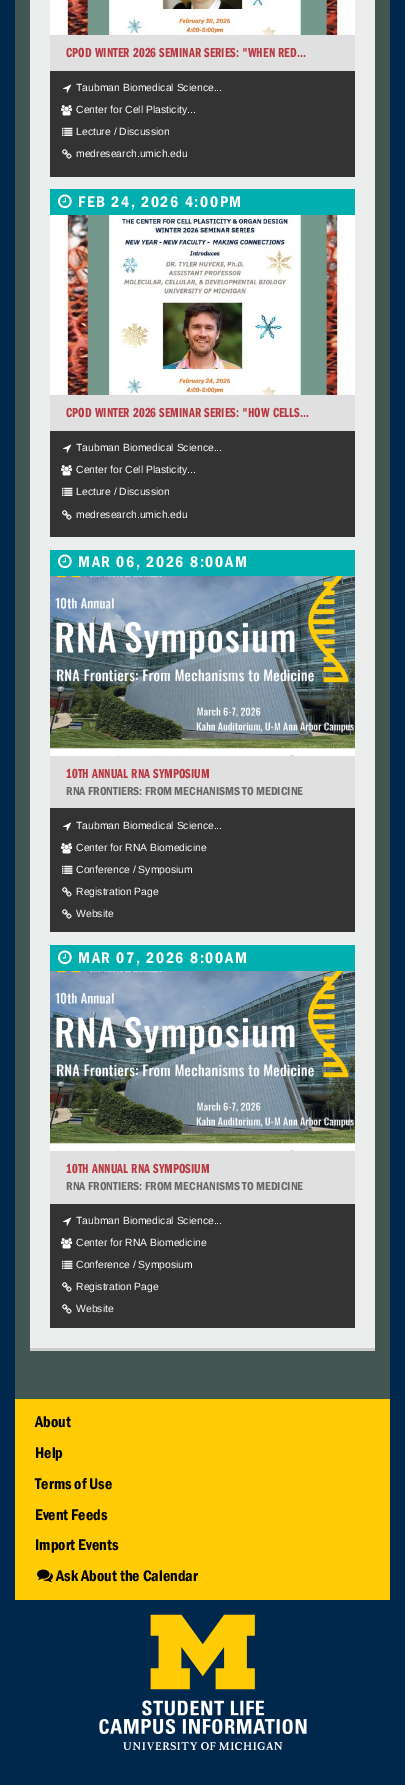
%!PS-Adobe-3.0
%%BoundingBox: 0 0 405 1785
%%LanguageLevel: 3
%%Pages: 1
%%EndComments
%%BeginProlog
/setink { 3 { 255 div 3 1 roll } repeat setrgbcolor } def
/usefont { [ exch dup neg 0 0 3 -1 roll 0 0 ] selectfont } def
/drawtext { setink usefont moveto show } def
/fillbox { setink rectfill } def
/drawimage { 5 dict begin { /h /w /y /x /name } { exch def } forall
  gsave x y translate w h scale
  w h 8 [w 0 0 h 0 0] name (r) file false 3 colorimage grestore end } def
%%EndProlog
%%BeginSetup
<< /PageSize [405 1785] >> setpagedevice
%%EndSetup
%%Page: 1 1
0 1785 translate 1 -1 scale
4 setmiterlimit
0 0 405 1785 0 39 76 fillbox
15 0 375 1399 68 86 82 fillbox
30 0 345 1348 236 238 238 fillbox
30 1348 345 3 204 204 204 fillbox
50 71 305 106 51 51 51 fillbox
(assets/img1.rgb) 50 0 305 35 drawimage
50 35 305 36 224 224 224 fillbox
(CPOD WINTER 2026 SEMINAR SERIES: "WHEN RED...) 66 57 /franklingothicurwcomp-SemiBold 13.6 184 57 66 drawtext
(assets/img2.rgb) 63 84 9 9 drawimage
(Taubman Biomedical Science...) 76 91 /LiberationSans-Regular 10.4 255 255 255 drawtext
(assets/img3.rgb) 61 105 12 11 drawimage
(Center for Cell Plasticity...) 76 113 /LiberationSans-Regular 10.4 255 255 255 drawtext
(assets/img4.rgb) 62 127 11 9 drawimage
(Lecture / Discussion) 76 135 /LiberationSans-Regular 10.4 255 255 255 drawtext
(assets/img5.rgb) 62 149 10 10 drawimage
(medresearch.umich.edu) 76 157 /LiberationSans-Regular 10.4 255 255 255 drawtext
50 431 305 106 51 51 51 fillbox
50 189 305 26 0 175 175 fillbox
(assets/img6.rgb) 58 194 14 15 drawimage
/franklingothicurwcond-Regular 16 usefont
255 255 255 setink
78 207 moveto 1.6 0 (FEB 24, 2026 4:00PM) ashow
(assets/img7.rgb) 50 215 305 180 drawimage
50 395 305 36 224 224 224 fillbox
(CPOD WINTER 2026 SEMINAR SERIES: "HOW CELLS...) 66 417 /franklingothicurwcomp-SemiBold 13.6 184 57 66 drawtext
(assets/img2.rgb) 63 444 9 9 drawimage
(Taubman Biomedical Science...) 76 451 /LiberationSans-Regular 10.4 255 255 255 drawtext
(assets/img3.rgb) 61 465 12 11 drawimage
(Center for Cell Plasticity...) 76 473 /LiberationSans-Regular 10.4 255 255 255 drawtext
(assets/img4.rgb) 62 487 11 9 drawimage
(Lecture / Discussion) 76 495 /LiberationSans-Regular 10.4 255 255 255 drawtext
(assets/img5.rgb) 62 510 10 10 drawimage
(medresearch.umich.edu) 76 518 /LiberationSans-Regular 10.4 255 255 255 drawtext
50 808 305 124 51 51 51 fillbox
50 550 305 26 0 175 175 fillbox
(assets/img6.rgb) 58 554 14 15 drawimage
/franklingothicurwcond-Regular 16 usefont
255 255 255 setink
78 567 moveto 1.6 0 (MAR 06, 2026 8:00AM) ashow
(assets/img8.rgb) 50 576 305 180 drawimage
50 756 305 52 224 224 224 fillbox
(10TH ANNUAL RNA SYMPOSIUM) 66 778 /franklingothicurwcomp-SemiBold 13.6 184 57 66 drawtext
(RNA FRONTIERS: FROM MECHANISMS TO MEDICINE) 66 795 /franklingothicurwcond-Regular 12 102 102 102 drawtext
(assets/img2.rgb) 63 822 9 9 drawimage
(Taubman Biomedical Science...) 76 829 /LiberationSans-Regular 10.4 255 255 255 drawtext
(assets/img3.rgb) 61 843 12 11 drawimage
(Center for RNA Biomedicine) 76 851 /LiberationSans-Regular 10.4 255 255 255 drawtext
(assets/img4.rgb) 62 865 11 9 drawimage
(Conference / Symposium) 76 873 /LiberationSans-Regular 10.4 255 255 255 drawtext
(assets/img5.rgb) 62 887 10 10 drawimage
(Registration Page) 76 895 /LiberationSans-Regular 10.4 255 255 255 drawtext
(assets/img5.rgb) 62 909 10 10 drawimage
(Website) 76 917 /LiberationSans-Regular 10.4 255 255 255 drawtext
50 1204 305 124 51 51 51 fillbox
50 945 305 26 0 175 175 fillbox
(assets/img6.rgb) 58 950 14 15 drawimage
/franklingothicurwcond-Regular 16 usefont
255 255 255 setink
78 963 moveto 1.6 0 (MAR 07, 2026 8:00AM) ashow
(assets/img8.rgb) 50 971 305 180 drawimage
50 1151 305 53 224 224 224 fillbox
(10TH ANNUAL RNA SYMPOSIUM) 66 1173 /franklingothicurwcomp-SemiBold 13.6 184 57 66 drawtext
(RNA FRONTIERS: FROM MECHANISMS TO MEDICINE) 66 1190 /franklingothicurwcond-Regular 12 102 102 102 drawtext
(assets/img2.rgb) 63 1217 9 9 drawimage
(Taubman Biomedical Science...) 76 1224 /LiberationSans-Regular 10.4 255 255 255 drawtext
(assets/img3.rgb) 61 1238 12 11 drawimage
(Center for RNA Biomedicine) 76 1246 /LiberationSans-Regular 10.4 255 255 255 drawtext
(assets/img4.rgb) 62 1260 11 9 drawimage
(Conference / Symposium) 76 1268 /LiberationSans-Regular 10.4 255 255 255 drawtext
(assets/img5.rgb) 62 1282 10 10 drawimage
(Registration Page) 76 1290 /LiberationSans-Regular 10.4 255 255 255 drawtext
(assets/img5.rgb) 62 1304 10 10 drawimage
(Website) 76 1312 /LiberationSans-Regular 10.4 255 255 255 drawtext
15 1399 375 201 255 203 5 fillbox
(About) 35 1427 /franklingothicurwcond-Regular 16 0 0 0 drawtext
(Help) 35 1458 /franklingothicurwcond-Regular 16 0 0 0 drawtext
(Terms of Use) 35 1489 /franklingothicurwcond-Regular 16 0 0 0 drawtext
(Event Feeds) 35 1520 /franklingothicurwcond-Regular 16 0 0 0 drawtext
(Import Events) 35 1550 /franklingothicurwcond-Regular 16 0 0 0 drawtext
(assets/img9.rgb) 37 1569 16 14 drawimage
(Ask About the Calendar) 56 1581 /franklingothicurwcond-Regular 16 0 0 0 drawtext
(assets/img10.rgb) 99 1614 208 136 drawimage
showpage
%%EOF
